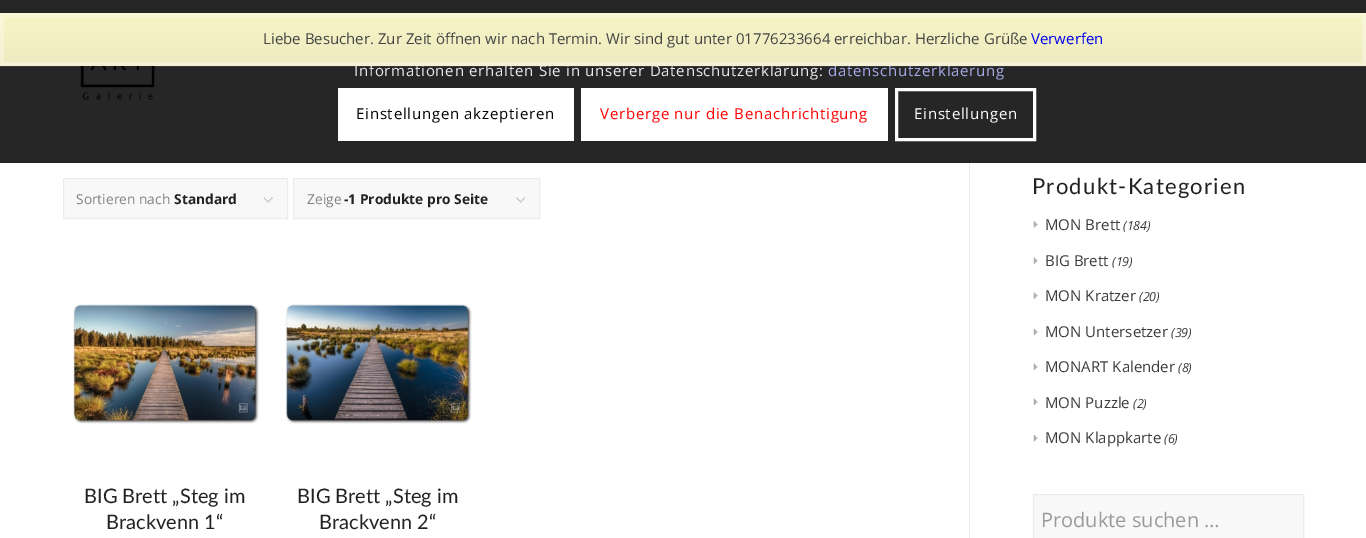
%!PS-Adobe-3.0
%%BoundingBox: 0 0 1366 538
%%LanguageLevel: 3
%%Pages: 1
%%EndComments
%%BeginProlog
/setink { 3 { 255 div 3 1 roll } repeat setrgbcolor } def
/usefont { [ exch dup neg 0 0 3 -1 roll 0 0 ] selectfont } def
/drawtext { setink usefont moveto show } def
/fillbox { setink rectfill } def
/setalpha { dup .setfillconstantalpha .setstrokeconstantalpha } def
/drawimage { 5 dict begin { /h /w /y /x /name } { exch def } forall
  gsave x y translate w h scale
  w h 8 [w 0 0 h 0 0] name (r) file false 3 colorimage grestore end } def
%%EndProlog
%%BeginSetup
<< /PageSize [1366 538] /PageUsesTransparency true >> setpagedevice
%%EndSetup
%%Page: 1 1
0 .pushpdf14devicefilter
0 538 translate 1 -1 scale
4 setmiterlimit
0 0 1366 538 255 255 255 fillbox
0 113 1366 50 38 38 38 fillbox
969 111 1 52 35 35 35 fillbox
0 0 1366 113 38 38 38 fillbox
/OpenSans-Regular 15 usefont
233 233 233 setink
354 76 moveto 0.75 0 (Informationen erhalten Sie in unserer Datenschutzerklärung:) ashow
166 170 230 setink
828 76 moveto 0.75 0 (datenschutzerklaerung) ashow
gsave 0 13 moveto 1366 13 lineto 1366 66 lineto 0 66 lineto closepath clip newpath
<< /ShadingType 2 /ColorSpace /DeviceRGB /Coords [683 12 683 66] /Extend [true true] /Function << /FunctionType 2 /Domain [0 1] /C0 [0.969 0.961 0.776] /C1 [0.933 0.918 0.757] /N 1 >> >> shfill grestore
0.3 setalpha
255 255 255 setink
4 setlinewidth
2 15 1362 49 rectstroke
1 setalpha
(Liebe Besucher. Zur Zeit öffnen wir nach Termin. Wir sind gut unter 01776233664 erreichbar. Herzliche Grüße) 263 44 /OpenSans-Regular 15 68 68 68 drawtext
(Verwerfen) 1031 44 /OpenSans-Regular 15 0 0 238 drawtext
338 88 236 53 255 255 255 fillbox
0 0 0 setink
356 119 moveto 0.75 0 (Einstellungen akzeptieren) ashow
581 88 307 53 255 255 255 fillbox
255 0 0 setink
600 119 moveto 0.75 0 (Verberge nur die Benachrichtigung) ashow
255 255 255 setink
3 setlinewidth
896.5 89.5 138 50 rectstroke
914 119 moveto 0.75 0 (Einstellungen) ashow
(assets/img1.rgb) 80 66 75 34 drawimage
969 163 1 375 235 235 235 fillbox
64 179 223 39 248 248 248 fillbox
(assets/img2.rgb) 263 197 10 6 drawimage
235 235 235 setink
1 setlinewidth
63.5 178.5 224 40 rectstroke
(Sortieren nach) 76 204 /OpenSans-Regular 13.75 128 128 128 drawtext
(Standard) 174 204 /OpenSans-Bold 13.75 34 34 34 drawtext
294 179 245 39 248 248 248 fillbox
(assets/img3.rgb) 516 197 10 6 drawimage
235 235 235 setink
293.5 178.5 246 40 rectstroke
(Zeige) 307 204 /OpenSans-Regular 13.75 128 128 128 drawtext
(-1 Produkte pro Seite) 344 204 /OpenSans-Bold 13.75 34 34 34 drawtext
(assets/img4.rgb) 73 304 187 120 drawimage
(BIG Brett „Steg im) 84 503 /Lato-Regular 20 34 34 34 drawtext
(Brackvenn 1“) 106 529 /Lato-Regular 20 34 34 34 drawtext
(assets/img5.rgb) 285 304 187 120 drawimage
(BIG Brett „Steg im) 297 503 /Lato-Regular 20 34 34 34 drawtext
(Brackvenn 2“) 319 529 /Lato-Regular 20 34 34 34 drawtext
/Lato-Regular 22 usefont
1032 194 moveto 1.25 0 (Produkt-Kategorien) ashow
(assets/img6.rgb) 1033 221 5 7 drawimage
(MON Brett) 1045 230 /OpenSans-Regular 15 61 60 61 drawtext
(\(184\)) 1123 230 /OpenSans-Italic 12.5 61 60 61 drawtext
(assets/img7.rgb) 1033 257 5 7 drawimage
(BIG Brett) 1045 266 /OpenSans-Regular 15 61 60 61 drawtext
(\(19\)) 1112 266 /OpenSans-Italic 12.5 61 60 61 drawtext
(assets/img8.rgb) 1033 292 5 7 drawimage
(MON Kratzer) 1045 301 /OpenSans-Regular 15 61 60 61 drawtext
(\(20\)) 1139 301 /OpenSans-Italic 12.5 61 60 61 drawtext
(assets/img9.rgb) 1033 328 5 7 drawimage
(MON Untersetzer) 1045 337 /OpenSans-Regular 15 61 60 61 drawtext
(\(39\)) 1171 337 /OpenSans-Italic 12.5 61 60 61 drawtext
(assets/img9.rgb) 1033 363 5 7 drawimage
(MONART Kalender) 1045 372 /OpenSans-Regular 15 61 60 61 drawtext
(\(8\)) 1178 372 /OpenSans-Italic 12.5 61 60 61 drawtext
(assets/img9.rgb) 1033 398 5 7 drawimage
(MON Puzzle) 1045 408 /OpenSans-Regular 15 61 60 61 drawtext
(\(2\)) 1133 408 /OpenSans-Italic 12.5 61 60 61 drawtext
(assets/img10.rgb) 1033 435 5 7 drawimage
(MON Klappkarte) 1045 443 /OpenSans-Regular 15 61 60 61 drawtext
(\(6\)) 1164 443 /OpenSans-Italic 12.5 61 60 61 drawtext
248 248 248 setink
1033.5 494.5 moveto 1303.5 494.5 lineto 1303.5 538.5 lineto 1033.5 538.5 lineto closepath gsave fill grestore
235 235 235 setink
stroke
(Produkte suchen …) 1041 527 /OpenSans-Regular 20 155 154 155 drawtext
.poppdf14devicefilter showpage
%%EOF
